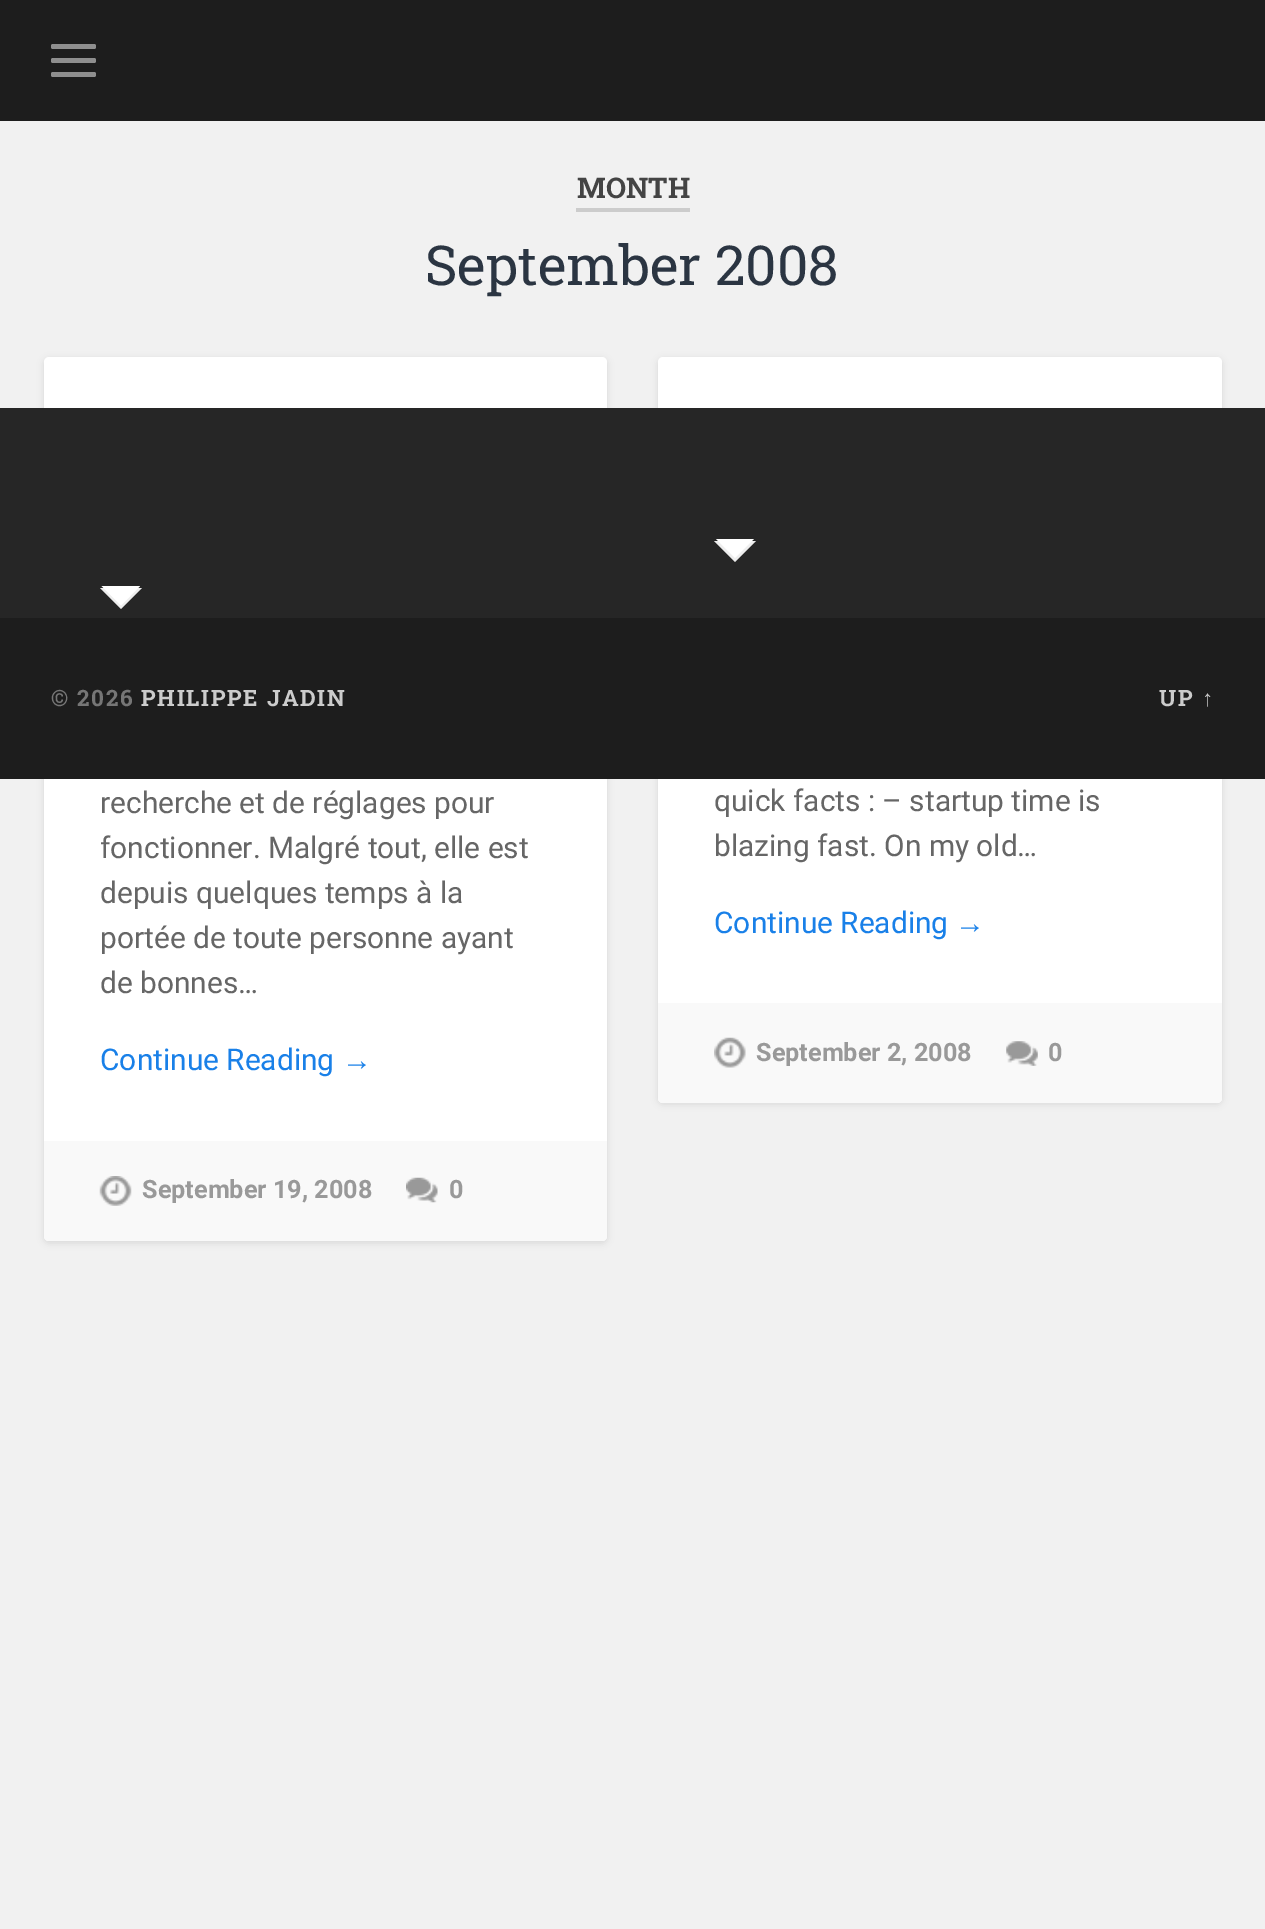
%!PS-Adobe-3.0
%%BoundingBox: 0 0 1265 1929
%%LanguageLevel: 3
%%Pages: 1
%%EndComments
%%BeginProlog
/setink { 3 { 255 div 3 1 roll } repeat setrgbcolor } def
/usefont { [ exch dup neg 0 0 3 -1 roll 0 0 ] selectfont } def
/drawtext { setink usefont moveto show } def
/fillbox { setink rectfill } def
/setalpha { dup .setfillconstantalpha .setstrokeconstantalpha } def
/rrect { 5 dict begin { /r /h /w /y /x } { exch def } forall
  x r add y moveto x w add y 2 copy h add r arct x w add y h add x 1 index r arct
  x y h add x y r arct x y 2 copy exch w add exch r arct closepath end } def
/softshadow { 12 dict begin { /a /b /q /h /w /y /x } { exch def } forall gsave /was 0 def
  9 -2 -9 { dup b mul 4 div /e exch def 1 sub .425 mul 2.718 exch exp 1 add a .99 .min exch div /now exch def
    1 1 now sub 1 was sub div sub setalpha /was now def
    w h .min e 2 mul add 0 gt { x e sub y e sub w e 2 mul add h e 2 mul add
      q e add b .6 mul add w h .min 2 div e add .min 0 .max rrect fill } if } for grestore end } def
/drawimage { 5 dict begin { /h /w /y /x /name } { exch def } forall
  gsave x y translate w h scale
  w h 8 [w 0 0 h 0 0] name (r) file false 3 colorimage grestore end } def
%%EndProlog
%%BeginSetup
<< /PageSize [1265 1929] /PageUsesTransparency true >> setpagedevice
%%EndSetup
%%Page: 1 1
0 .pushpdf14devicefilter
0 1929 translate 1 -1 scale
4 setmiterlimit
0 0 1265 1929 241 241 241 fillbox
0 0 1265 121 29 29 29 fillbox
142 142 142 setink
51 44 45 5 2 rrect fill
51 58 45 5 2 rrect fill
51 72 45 5 2 rrect fill
576 208 114 4 204 204 204 fillbox
(MONTH) 577 198 /RobotoSlab-Bold 28.5 68 68 68 drawtext
(September 2008) 425 285 /RobotoSlab-Regular 55 43 53 66 drawtext
0 0 0 setink
44 359 563 884 5 3.5 0.1 softshadow
255 255 255 setink
44 357 563 884 5 rrect fill
0 0 0 setink
658 359 564 745 5 3.5 0.1 softshadow
255 255 255 setink
658 357 564 746 5 rrect fill
0 408 1265 210 38 38 38 fillbox
238 238 238 setink
100 588 moveto 142 588 lineto 121 609 lineto closepath fill
255 255 255 setink
101.5 586 moveto 140 586 lineto 121 605.5 lineto closepath fill
(recherche et de réglages pour) 100 813 /Roboto-Regular 29.9 102 102 102 drawtext
(fonctionner. Malgré tout, elle est) 100 858 /Roboto-Regular 29.9 102 102 102 drawtext
(depuis quelques temps à la) 100 903 /Roboto-Regular 29.9 102 102 102 drawtext
(portée de toute personne ayant) 100 948 /Roboto-Regular 29.9 102 102 102 drawtext
(de bonnes…) 100 993 /Roboto-Regular 29.9 102 102 102 drawtext
(Continue Reading) 100 1070 /Roboto-Regular 29.9 25 128 232 drawtext
(→) 342 1070 /LiberationSans-Regular 29.9 25 128 232 drawtext
249 249 249 setink
44 1141 moveto 607 1141 lineto 607 1236 lineto 607 1239 605 1241 602 1241 curveto 49 1241 lineto 46 1241 44 1239 44 1236 curveto closepath fill
(assets/img1.rgb) 99 1176 33 30 drawimage
(September 19, 2008) 142 1198 /Roboto-Bold 25.25 153 153 153 drawtext
(assets/img2.rgb) 406 1177 32 26 drawimage
(0) 449 1198 /Roboto-Bold 25.25 153 153 153 drawtext
238 238 238 setink
714 541 moveto 756 541 lineto 735 562 lineto closepath fill
255 255 255 setink
716 539 moveto 754 539 lineto 735 558 lineto closepath fill
(quick facts : – startup time is) 714 811 /Roboto-Regular 29.9 102 102 102 drawtext
(blazing fast. On my old…) 714 856 /Roboto-Regular 29.9 102 102 102 drawtext
(Continue Reading) 714 933 /Roboto-Regular 29.9 25 128 232 drawtext
(→) 955 933 /LiberationSans-Regular 29.9 25 128 232 drawtext
249 249 249 setink
658 1003 moveto 1222 1003 lineto 1222 1098 lineto 1222 1101 1220 1103 1217 1103 curveto 663 1103 lineto 660 1103 658 1101 658 1098 curveto closepath fill
(assets/img3.rgb) 714 1037 32 31 drawimage
(September 2, 2008) 756 1061 /Roboto-Bold 25.25 153 153 153 drawtext
(assets/img4.rgb) 1006 1041 32 25 drawimage
(0) 1048 1061 /Roboto-Bold 25.25 153 153 153 drawtext
0 618 1265 161 29 29 29 fillbox
/RobotoSlab-Bold 22.5 usefont
118 118 118 setink
51 706 moveto 1.75 0 (© 2026) ashow
204 204 204 setink
141 706 moveto 1.75 0 (PHILIPPE JADIN) ashow
1159 706 moveto 1.75 0 (UP) ashow
/LiberationSans-Bold 22.5 usefont
1202 706 moveto 1.75 0 (↑) ashow
.poppdf14devicefilter showpage
%%EOF
